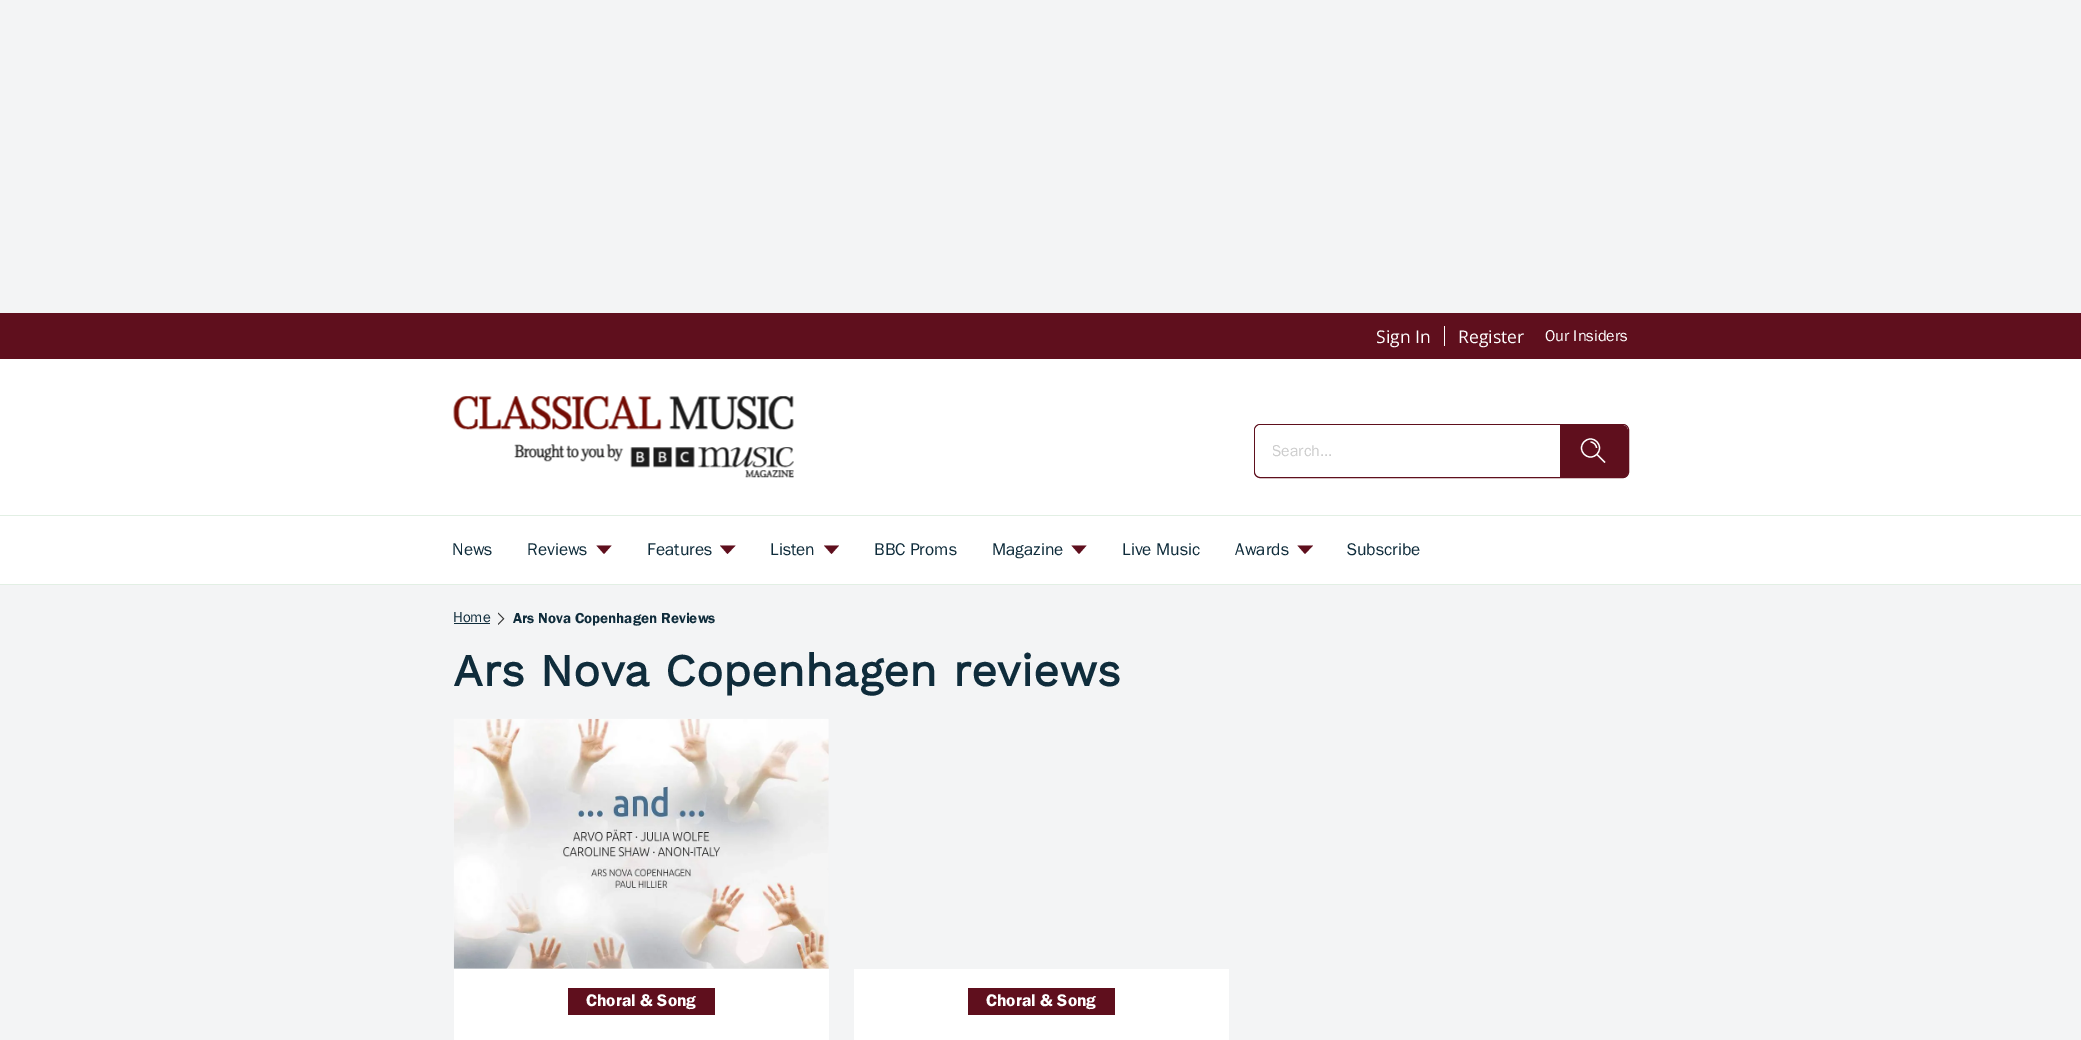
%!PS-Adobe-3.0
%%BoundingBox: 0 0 2081 1040
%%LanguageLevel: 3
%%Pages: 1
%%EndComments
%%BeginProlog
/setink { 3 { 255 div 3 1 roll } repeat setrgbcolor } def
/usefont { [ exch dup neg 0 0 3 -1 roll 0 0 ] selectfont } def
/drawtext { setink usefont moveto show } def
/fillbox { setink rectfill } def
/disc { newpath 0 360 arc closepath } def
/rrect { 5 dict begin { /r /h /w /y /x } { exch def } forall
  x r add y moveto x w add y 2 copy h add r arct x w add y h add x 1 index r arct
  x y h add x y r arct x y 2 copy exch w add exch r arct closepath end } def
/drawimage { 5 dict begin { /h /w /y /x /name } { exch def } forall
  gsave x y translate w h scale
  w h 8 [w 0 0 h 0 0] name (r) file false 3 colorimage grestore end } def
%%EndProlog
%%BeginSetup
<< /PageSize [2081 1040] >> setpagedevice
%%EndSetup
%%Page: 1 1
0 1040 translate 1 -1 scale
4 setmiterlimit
0 0 2081 1040 243 244 245 fillbox
0 313 2081 46 95 15 29 fillbox
(Sign In) 1376 343 /OpenSans-Regular 17.5 255 255 255 drawtext
1444 326 1 20 255 255 255 fillbox
(Register) 1458 343 /OpenSans-Regular 17.5 255 255 255 drawtext
(Our Insiders) 1545 341 /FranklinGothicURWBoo-Regular 16.25 255 255 255 drawtext
0 359 2081 156 255 255 255 fillbox
(assets/img1.rgb) 453 396 341 82 drawimage
95 15 29 setink
1254.5 424.5 374 53 5.5 rrect stroke
255 255 255 setink
1255 425 373 51 6 rrect fill
gsave
1273 441 242 19 rectclip
(Search...) 1272 456 /FranklinGothicURWBoo-Regular 16.25 204 204 204 drawtext
grestore
95 15 29 setink
1560 425 moveto 1622 425 lineto 1625.5 425 1628 427.5 1628 431 curveto 1628 472 lineto 1628 475.5 1625.5 478 1622 478 curveto 1560 478 lineto closepath fill
255 255 255 setink
1.2 setlinewidth
1590.5 448 9 disc stroke
1596.5 448 moveto 1596.5 445 1593.5 442 1590.5 442 curveto stroke
1 setlinejoin
1605 462.5 moveto 1597 454.5 lineto stroke
0 516 2081 68 255 255 255 fillbox
0 515 2081 1 226 239 228 fillbox
0 584 2081 1 226 239 228 fillbox
(News) 452 555 /FranklinGothicURWBoo-Regular 17.5 15 44 59 drawtext
(Reviews) 527 555 /FranklinGothicURWBoo-Regular 17.5 15 44 59 drawtext
95 15 29 setink
604 554 moveto 596.5 545.5 lineto 611.5 545.5 lineto closepath fill
(Features) 647 555 /FranklinGothicURWBoo-Regular 17.5 15 44 59 drawtext
95 15 29 setink
727.5 554 moveto 720 545.5 lineto 735.5 545.5 lineto closepath fill
(Listen) 770 555 /FranklinGothicURWBoo-Regular 17.5 15 44 59 drawtext
95 15 29 setink
831.5 554 moveto 824 545.5 lineto 839 545.5 lineto closepath fill
(BBC Proms) 874 555 /FranklinGothicURWBoo-Regular 17.5 15 44 59 drawtext
(Magazine) 992 555 /FranklinGothicURWBoo-Regular 17.5 15 44 59 drawtext
95 15 29 setink
1079 554 moveto 1071.5 545.5 lineto 1086.5 545.5 lineto closepath fill
(Live Music) 1122 555 /FranklinGothicURWBoo-Regular 17.5 15 44 59 drawtext
(Awards) 1235 555 /FranklinGothicURWBoo-Regular 17.5 15 44 59 drawtext
95 15 29 setink
1305 554 moveto 1297.5 545.5 lineto 1313 545.5 lineto closepath fill
(Subscribe) 1347 555 /FranklinGothicURWBoo-Regular 17.5 15 44 59 drawtext
(Home) 453 622 /FranklinGothicURWBoo-Regular 15 15 44 59 drawtext
454 623 36 1 15 44 59 fillbox
(assets/img2.rgb) 498 612 7 13 drawimage
(Ars Nova Copenhagen Reviews) 513 623 /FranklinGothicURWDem-Regular 15 15 44 59 drawtext
(Ars Nova Copenhagen reviews) 453 686 /WorkSans-Bold 45 15 44 59 drawtext
(assets/img3.rgb) 453 718 376 251 drawimage
454 969 375 71 255 255 255 fillbox
568 988 147 27 95 15 29 fillbox
(Choral & Song) 586 1006 /FranklinGothicURWDem-Regular 17.5 255 255 255 drawtext
854 969 375 71 255 255 255 fillbox
968 988 147 27 95 15 29 fillbox
(Choral & Song) 986 1006 /FranklinGothicURWDem-Regular 17.5 255 255 255 drawtext
showpage
%%EOF
